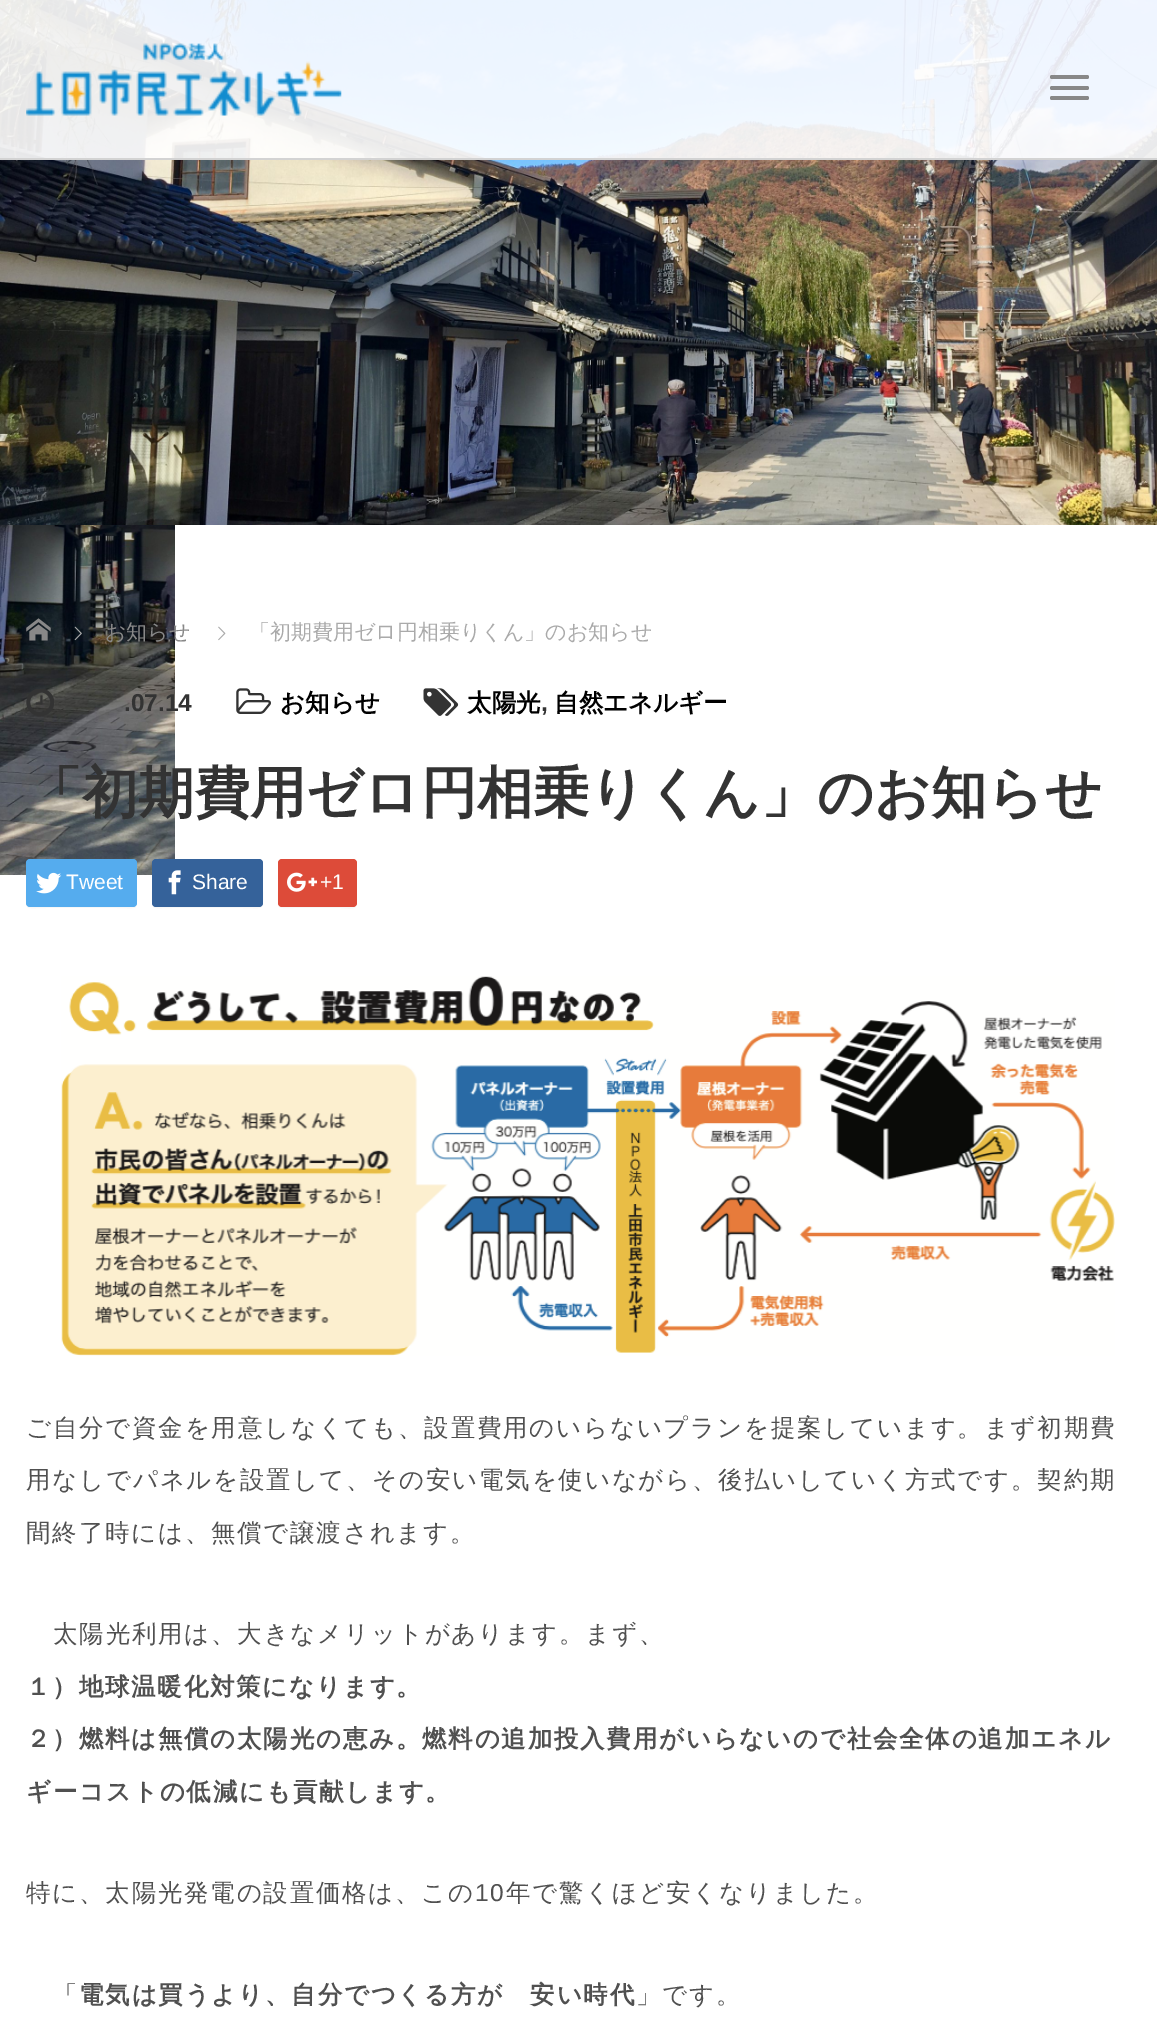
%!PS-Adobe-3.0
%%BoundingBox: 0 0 1157 2035
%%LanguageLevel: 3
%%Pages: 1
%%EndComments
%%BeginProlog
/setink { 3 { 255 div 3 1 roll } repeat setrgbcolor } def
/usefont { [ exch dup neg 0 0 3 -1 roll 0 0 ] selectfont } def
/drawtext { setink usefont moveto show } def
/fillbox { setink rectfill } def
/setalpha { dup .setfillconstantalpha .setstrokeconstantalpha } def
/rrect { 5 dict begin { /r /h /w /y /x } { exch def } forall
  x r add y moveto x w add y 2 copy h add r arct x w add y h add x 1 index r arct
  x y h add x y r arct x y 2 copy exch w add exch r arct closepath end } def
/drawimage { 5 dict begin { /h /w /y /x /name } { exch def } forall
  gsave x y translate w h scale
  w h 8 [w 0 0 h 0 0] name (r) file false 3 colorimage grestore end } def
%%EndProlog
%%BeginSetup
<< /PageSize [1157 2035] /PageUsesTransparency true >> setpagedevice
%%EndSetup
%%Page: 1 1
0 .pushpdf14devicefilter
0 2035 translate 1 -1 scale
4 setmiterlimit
0 0 1157 2035 255 255 255 fillbox
(assets/img1.rgb) 0 0 1157 525 drawimage
0.9 setalpha
0 0 1157 158 255 255 255 fillbox
1 setalpha
0 158 1157 2 211 211 211 fillbox
(assets/img2.rgb) 26 43 316 73 drawimage
136 136 136 setink
1050 75 39 4 2 rrect fill
1050 86 39 4 2 rrect fill
1050 96 39 4 2 rrect fill
(assets/img3.rgb) 0 525 175 350 drawimage
(assets/img4.rgb) 26 618 25 23 drawimage
(assets/img5.rgb) 74 626 8 15 drawimage
(お知らせ) 105 639 /WenQuanYiZenHei-Medium 21 136 136 136 drawtext
(assets/img6.rgb) 218 626 8 15 drawimage
(「初期費用ゼロ円相乗りくん」のお知らせ) 249 639 /WenQuanYiZenHei-Medium 21 170 170 170 drawtext
(assets/img7.rgb) 26 689 28 27 drawimage
(.07.14) 124 711 /LiberationSans-Bold 24.5 51 51 51 drawtext
(assets/img8.rgb) 236 688 35 26 drawimage
(お知らせ) 280 711 /WenQuanYiZenHei-Bold 24.5 0 0 0 drawtext
(assets/img9.rgb) 423 688 36 28 drawimage
(太陽光) 467 711 /WenQuanYiZenHei-Bold 24.5 0 0 0 drawtext
(,) 541 711 /LiberationSans-Bold 24.5 51 51 51 drawtext
(自然エネルギー) 554 711 /WenQuanYiZenHei-Bold 24.5 0 0 0 drawtext
(「初期費用ゼロ円相乗りくん」のお知らせ) 26 812 /WenQuanYiZenHei-Bold 56 51 51 51 drawtext
0.03 setalpha
0 0 0 setink
26 864 moveto 26 891 lineto 26 912 24 908 47 908 curveto 116 908 lineto 139 908 137 912 137 891 curveto 137 872 lineto 137 870 138 865 136 863 curveto 136 903 lineto 136 905 135 906 133 906 curveto 30 906 lineto 28 906 26 905 26 903 curveto closepath fill
1 setalpha
85 172 238 setink
26 859 111 48 4 rrect fill
(assets/img10.rgb) 36 872 26 22 drawimage
(Tweet) 66 889 /LiberationSans-Regular 21 255 255 255 drawtext
247 247 247 setink
152 864 moveto 152 891 lineto 152 912 150 908 173 908 curveto 242 908 lineto 265 908 263 912 263 891 curveto 263 872 lineto 263 870 264 865 262 863 curveto 262 903 lineto 262 905 261 906 259 906 curveto 156 906 lineto 154 906 152 905 152 903 curveto closepath fill
53 98 154 setink
152 859 111 48 4 rrect fill
(assets/img11.rgb) 168 870 13 25 drawimage
(Share) 192 889 /LiberationSans-Regular 21 255 255 255 drawtext
247 247 247 setink
278 864 moveto 278 891 lineto 278 910 275 908 294 908 curveto 341 908 lineto 346 908 357 911 357 903 curveto 357 905 355 906 354 906 curveto 282 906 lineto 280 906 278 905 278 903 curveto closepath fill
221 75 57 setink
278 859 79 48 4 rrect fill
(assets/img12.rgb) 287 872 30 20 drawimage
(+1) 320 889 /LiberationSans-Regular 21 255 255 255 drawtext
(assets/img13.rgb) 61 976 1054 380 drawimage
/WenQuanYiZenHei-Medium 24.5 usefont
80 80 80 setink
26 1436 moveto 1.75 0 (ご自分で資金を用意しなくても、設置費用のいらないプランを提案しています。まず初期費) ashow
26 1488 moveto 1.75 0 (用なしでパネルを設置して、その安い電気を使いながら、後払いしていく方式です。契約期) ashow
26 1541 moveto 1.75 0 (間終了時には、無償で譲渡されます。) ashow
53 1642 moveto 1.75 0 (太陽光利用は、大きなメリットがあります。まず、) ashow
/WenQuanYiZenHei-Bold 24.5 usefont
26 1695 moveto 1.75 0 (１）地球温暖化対策になります。) ashow
26 1747 moveto 1.75 0 (２）燃料は無償の太陽光の恵み。燃料の追加投入費用がいらないので社会全体の追加エネル) ashow
26 1800 moveto 1.75 0 (ギーコストの低減にも貢献します。) ashow
/WenQuanYiZenHei-Medium 24.5 usefont
26 1901 moveto 1.75 0 (特に、太陽光発電の設置価格は、この) ashow
/LiberationSans-Regular 24.5 usefont
475 1901 moveto 1.75 0 (10) ashow
/WenQuanYiZenHei-Medium 24.5 usefont
506 1901 moveto 1.75 0 (年で驚くほど安くなりました。) ashow
53 2003 moveto 1.75 0 (「) ashow
/WenQuanYiZenHei-Bold 24.5 usefont
79 2003 moveto 1.75 0 (電気は買うより、自分でつくる方が　安い時代) ashow
/WenQuanYiZenHei-Medium 24.5 usefont
636 2003 moveto 1.75 0 (」です。) ashow
.poppdf14devicefilter showpage
%%EOF
